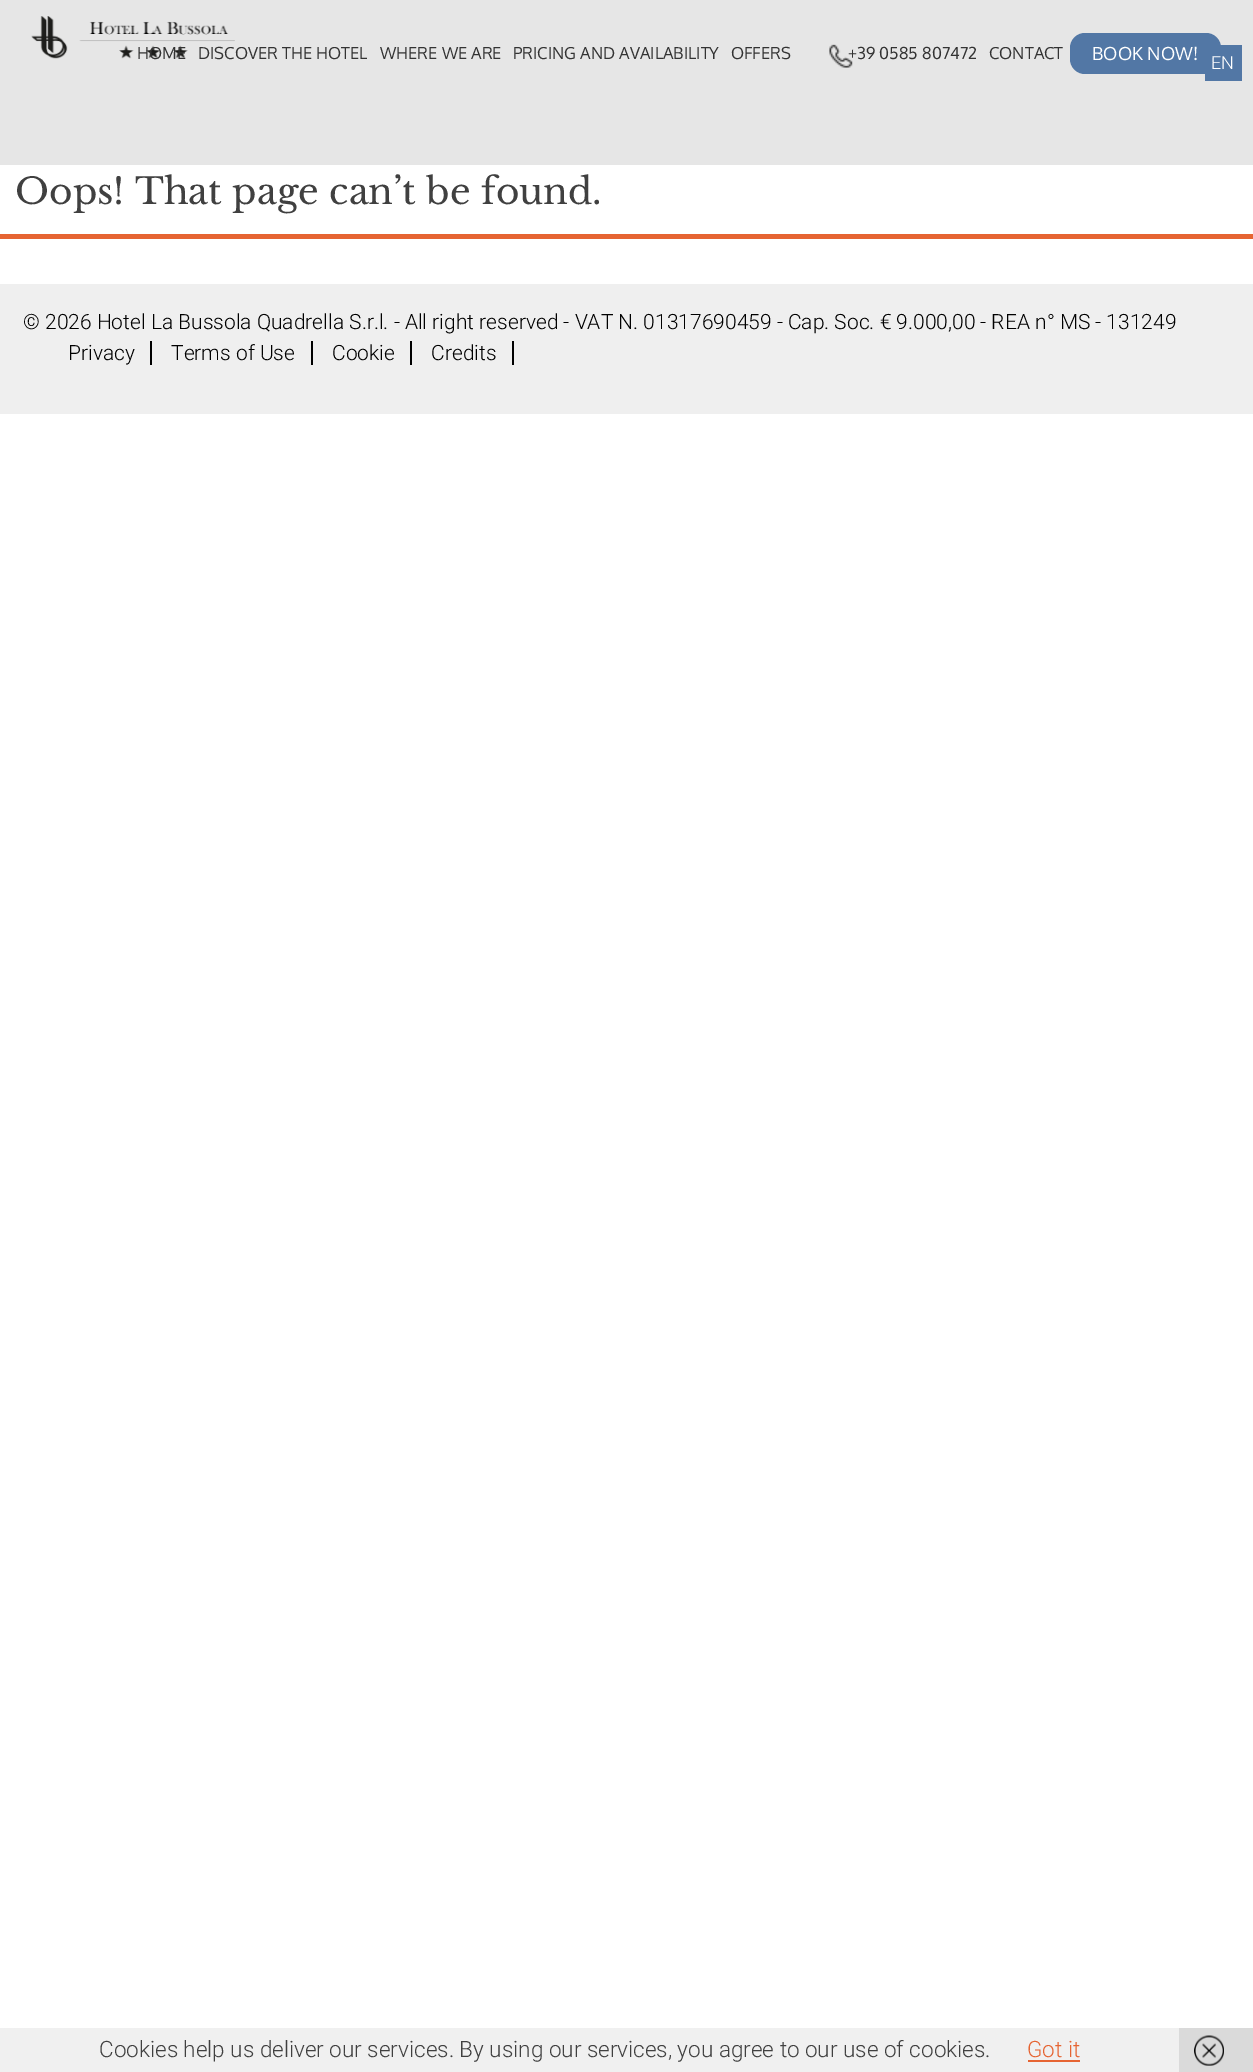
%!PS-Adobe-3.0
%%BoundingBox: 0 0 1253 2072
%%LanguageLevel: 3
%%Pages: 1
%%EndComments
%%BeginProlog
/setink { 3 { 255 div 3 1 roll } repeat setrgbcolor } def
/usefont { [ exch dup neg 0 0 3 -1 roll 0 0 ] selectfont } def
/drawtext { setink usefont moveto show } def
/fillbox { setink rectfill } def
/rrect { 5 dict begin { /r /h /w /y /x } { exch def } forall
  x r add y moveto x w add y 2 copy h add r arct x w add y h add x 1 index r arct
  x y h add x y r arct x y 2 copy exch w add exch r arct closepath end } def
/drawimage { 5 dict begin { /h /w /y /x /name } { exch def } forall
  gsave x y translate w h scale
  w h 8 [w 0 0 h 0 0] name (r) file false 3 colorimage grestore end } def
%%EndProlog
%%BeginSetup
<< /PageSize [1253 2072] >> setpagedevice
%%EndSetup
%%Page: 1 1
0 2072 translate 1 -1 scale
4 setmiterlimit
0 0 1253 2072 255 255 255 fillbox
0 0 1253 165 230 230 230 fillbox
(assets/img1.rgb) 31 16 204 43 drawimage
(HOME) 137 59 /Oxygen-Regular 16.5 51 51 51 drawtext
(DISCOVER THE HOTEL) 198 59 /Oxygen-Regular 16.5 51 51 51 drawtext
(WHERE WE ARE) 380 59 /Oxygen-Regular 16.5 51 51 51 drawtext
(PRICING AND AVAILABILITY) 513 59 /Oxygen-Regular 16.5 51 51 51 drawtext
(OFFERS) 731 59 /Oxygen-Regular 16.5 51 51 51 drawtext
(assets/img2.rgb) 829 44 24 24 drawimage
(+39 0585 807472) 848 59 /Oxygen-Regular 16.5 51 51 51 drawtext
(CONTACT) 989 59 /Oxygen-Regular 16.5 51 51 51 drawtext
82 119 165 setink
1070 33 151 41 15 rrect fill
(BOOK NOW!) 1092 60 /Oxygen-Regular 18 255 255 255 drawtext
1205 45 37 36 82 119 165 fillbox
(EN) 1211 69 /Roboto-Light 18 255 255 255 drawtext
0 234 1253 5 230 100 50 fillbox
(Oops! That page can’t be found.) 15 204 /LibreBaskerville-Regular 36 64 64 64 drawtext
0 284 1253 130 239 239 239 fillbox
(© 2026 Hotel La Bussola Quadrella S.r.l. - All right reserved - VAT N. 01317690459 - Cap. Soc. € 9.000,00 - REA n° MS - 131249) 23 329 /Roboto-Light 21 0 0 0 drawtext
(Privacy) 68 360 /Roboto-Light 21 0 0 0 drawtext
150 341 2 24 0 0 0 fillbox
(Terms of Use) 171 360 /Roboto-Light 21 0 0 0 drawtext
311 341 2 24 0 0 0 fillbox
(Cookie) 332 360 /Roboto-Light 21 0 0 0 drawtext
410 341 2 24 0 0 0 fillbox
(Credits) 431 360 /Roboto-Light 21 0 0 0 drawtext
512 341 2 24 0 0 0 fillbox
0 2028 1179 44 240 240 240 fillbox
(Cookies help us deliver our services. By using our services, you agree to our use of cookies.) 99 2057 /Roboto-Light 22.5 64 64 64 drawtext
(Got it) 1027 2057 /Roboto-Light 22.5 230 100 50 drawtext
1028 2060 52 2 230 100 50 fillbox
1179 2028 74 44 218 218 218 fillbox
(assets/img3.rgb) 1194 2035 30 31 drawimage
showpage
%%EOF
